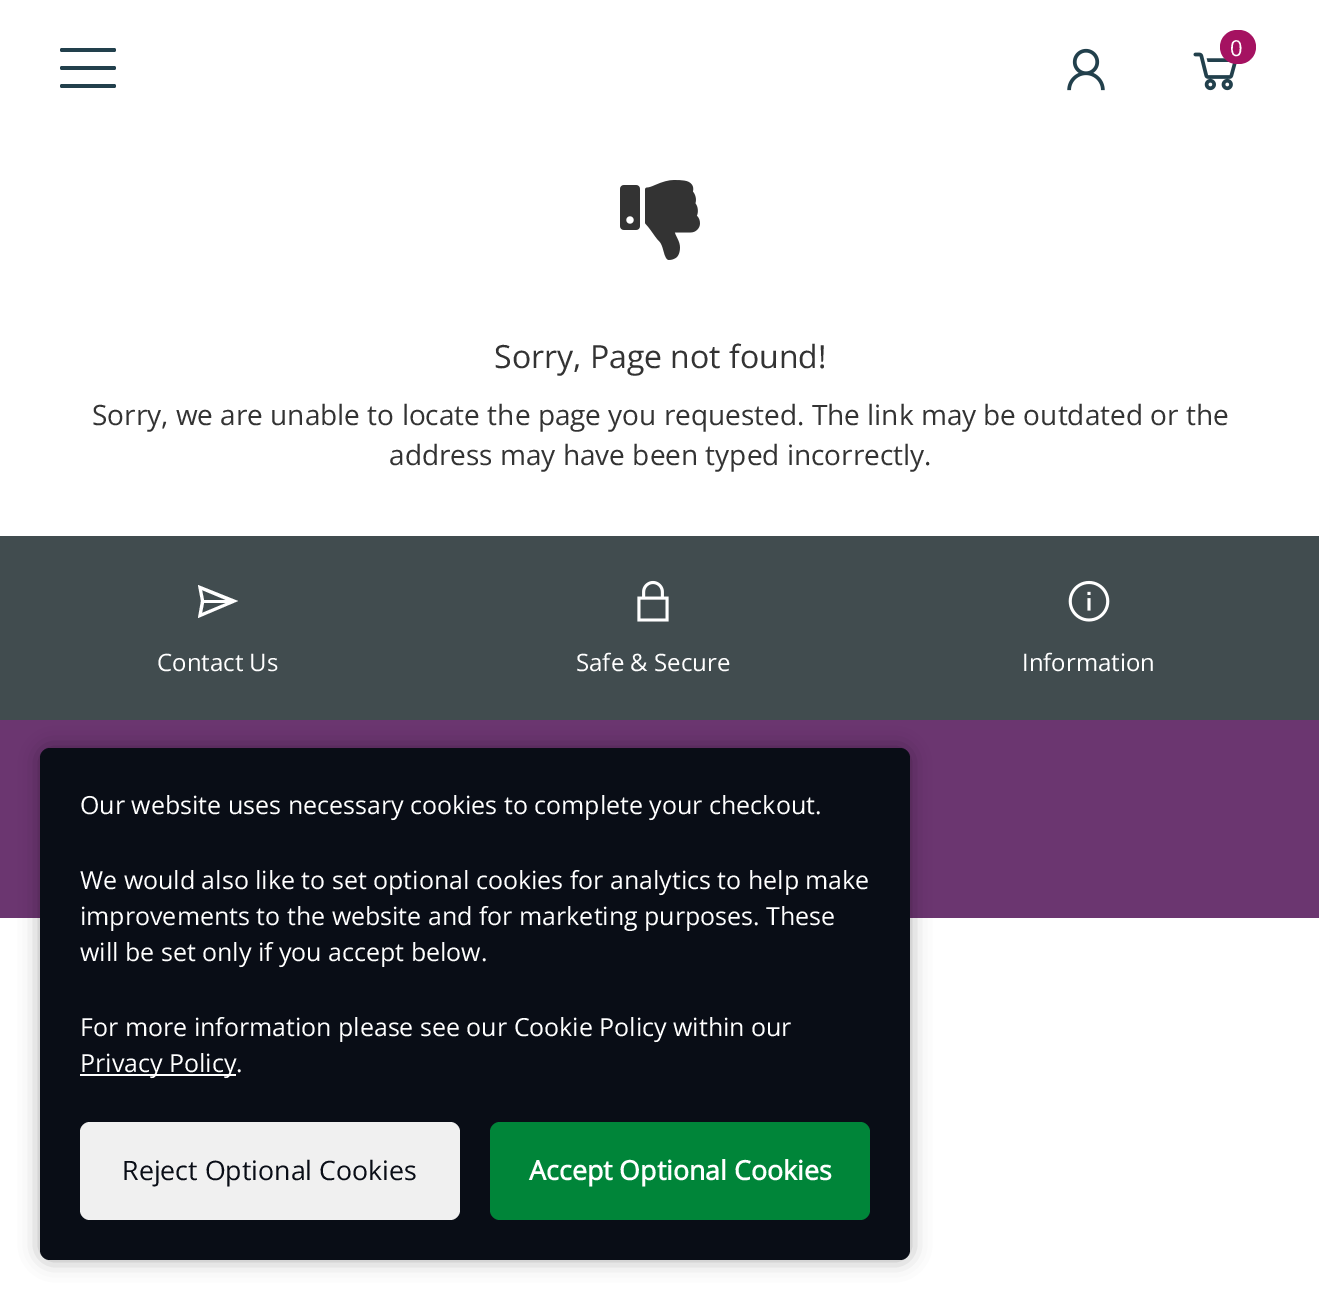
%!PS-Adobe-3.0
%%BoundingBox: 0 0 1319 1299
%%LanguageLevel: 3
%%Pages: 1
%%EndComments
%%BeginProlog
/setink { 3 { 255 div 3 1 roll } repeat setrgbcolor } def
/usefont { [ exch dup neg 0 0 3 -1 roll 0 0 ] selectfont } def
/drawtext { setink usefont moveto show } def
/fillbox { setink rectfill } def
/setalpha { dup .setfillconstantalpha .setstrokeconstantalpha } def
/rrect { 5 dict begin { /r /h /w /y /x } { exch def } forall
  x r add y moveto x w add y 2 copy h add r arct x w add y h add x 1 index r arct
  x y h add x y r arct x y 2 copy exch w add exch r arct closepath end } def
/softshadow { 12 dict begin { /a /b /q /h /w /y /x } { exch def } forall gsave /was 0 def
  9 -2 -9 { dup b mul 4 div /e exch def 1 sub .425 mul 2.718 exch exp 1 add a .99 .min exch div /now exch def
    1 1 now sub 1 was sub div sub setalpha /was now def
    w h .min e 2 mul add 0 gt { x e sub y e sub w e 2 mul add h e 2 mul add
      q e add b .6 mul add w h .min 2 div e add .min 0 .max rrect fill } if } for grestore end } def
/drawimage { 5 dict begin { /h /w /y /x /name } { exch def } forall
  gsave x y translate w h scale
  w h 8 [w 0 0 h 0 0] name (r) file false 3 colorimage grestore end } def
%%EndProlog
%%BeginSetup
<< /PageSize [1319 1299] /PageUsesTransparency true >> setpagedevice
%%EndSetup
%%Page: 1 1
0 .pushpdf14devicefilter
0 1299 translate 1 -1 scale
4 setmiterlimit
0 0 1319 1299 255 255 255 fillbox
34 64 76 setink
60 48 56 4 2 rrect fill
60 66 56 4 2 rrect fill
60 84 56 4 2 rrect fill
(assets/img1.rgb) 1067 48 38 43 drawimage
(assets/img2.rgb) 1193 52 44 39 drawimage
165 18 97 setink
1220 30 36 34 17 rrect fill
(0) 1230 56 /OpenSans-Regular 22 255 255 255 drawtext
(assets/img3.rgb) 620 180 80 80 drawimage
(Sorry, Page not found!) 494 368 /OpenSans-Regular 32 51 51 51 drawtext
(Sorry, we are unable to locate the page you requested. The link may be outdated or the) 92 425 /OpenSans-Regular 28 51 51 51 drawtext
(address may have been typed incorrectly.) 389 465 /OpenSans-Regular 28 51 51 51 drawtext
0 536 1319 184 65 76 79 fillbox
255 255 255 setink
198 585 moveto 201 601 lineto 198 618 lineto 238 601 lineto closepath 202 590 moveto 226 600 lineto 204 600 lineto closepath 204 603 moveto 226 603 lineto 202 613 lineto closepath fill
(Contact Us) 157 671 /OpenSans-Regular 24 255 255 255 drawtext
(assets/img4.rgb) 637 580 32 42 drawimage
(Safe & Secure) 576 671 /OpenSans-Regular 24 255 255 255 drawtext
(assets/img5.rgb) 1068 580 42 42 drawimage
(Information) 1022 671 /OpenSans-Regular 24 255 255 255 drawtext
0 720 1319 198 107 54 112 fillbox
0 0 0 setink
40 748 870 512 10 10 0.33 softshadow
9 13 22 setink
40 748 870 512 10 rrect fill
(Our website uses necessary cookies to complete your checkout.) 80 814 /OpenSans-Regular 25 255 255 255 drawtext
(We would also like to set optional cookies for analytics to help make) 80 889 /OpenSans-Regular 25 255 255 255 drawtext
(improvements to the website and for marketing purposes. These) 80 925 /OpenSans-Regular 25 255 255 255 drawtext
(will be set only if you accept below.) 80 961 /OpenSans-Regular 25 255 255 255 drawtext
(For more information please see our Cookie Policy within our) 80 1036 /OpenSans-Regular 25 255 255 255 drawtext
80 1074 156 2 255 255 255 fillbox
(Privacy Policy.) 80 1072 /OpenSans-Regular 25 255 255 255 drawtext
240 240 240 setink
80 1122 380 98 10 rrect fill
(Reject Optional Cookies) 122 1180 /OpenSans-Regular 26.75 9 13 22 drawtext
0 133 57 setink
490 1122 380 98 10 rrect fill
(Accept Optional Cookies) 529 1180 /OpenSans-Bold 26.75 255 255 255 drawtext
.poppdf14devicefilter showpage
%%EOF
